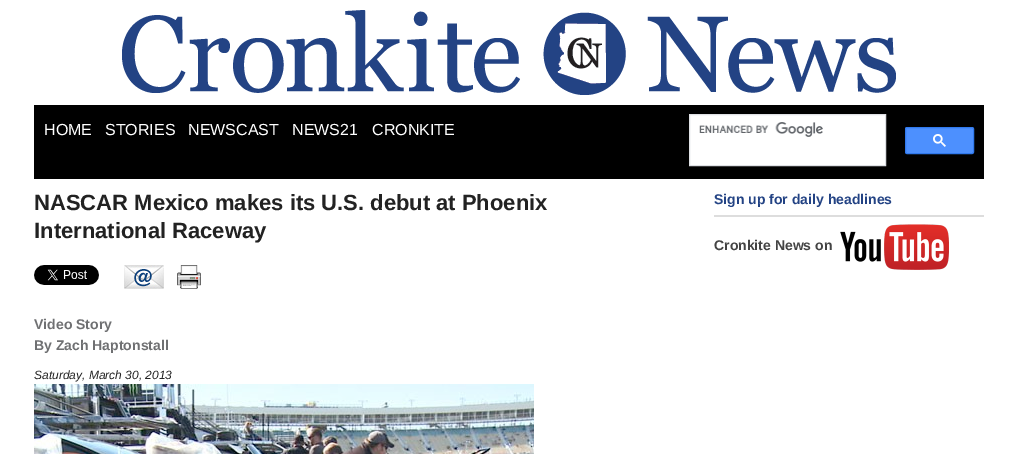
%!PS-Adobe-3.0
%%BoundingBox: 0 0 1017 454
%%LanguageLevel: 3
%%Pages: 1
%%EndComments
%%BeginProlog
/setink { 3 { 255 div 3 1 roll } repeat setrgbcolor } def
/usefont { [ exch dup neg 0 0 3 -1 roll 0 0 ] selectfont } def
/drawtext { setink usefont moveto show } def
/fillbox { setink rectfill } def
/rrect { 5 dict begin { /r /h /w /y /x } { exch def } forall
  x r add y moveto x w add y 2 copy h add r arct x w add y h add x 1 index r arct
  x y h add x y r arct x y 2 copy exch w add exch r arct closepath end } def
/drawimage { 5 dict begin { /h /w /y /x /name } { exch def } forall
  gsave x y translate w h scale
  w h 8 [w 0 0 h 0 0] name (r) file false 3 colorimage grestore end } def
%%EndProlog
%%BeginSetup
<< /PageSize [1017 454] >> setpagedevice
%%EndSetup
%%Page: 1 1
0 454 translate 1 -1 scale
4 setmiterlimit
0 0 1017 454 255 255 255 fillbox
(assets/img1.rgb) 122 10 774 85 drawimage
34 105 950 74 0 0 0 fillbox
(HOME) 44 135 /LiberationSans-Regular 16 255 255 255 drawtext
(STORIES) 105 135 /LiberationSans-Regular 16 255 255 255 drawtext
(NEWSCAST) 188 135 /LiberationSans-Regular 16 255 255 255 drawtext
(NEWS21) 292 135 /LiberationSans-Regular 16 255 255 255 drawtext
(CRONKITE) 372 135 /LiberationSans-Regular 16 255 255 255 drawtext
689.5 114.5 moveto 885.5 114.5 lineto 885.5 165.5 lineto 689.5 165.5 lineto closepath gsave fill grestore
223 225 229 setink
stroke
(assets/img2.rgb) 699 122 124 15 drawimage
77 144 254 setink
905.5 127.5 68 26 1.5 rrect gsave fill grestore
48 121 237 setink
stroke
(assets/img3.rgb) 933 134 13 13 drawimage
(NASCAR Mexico makes its U.S. debut at Phoenix) 34 210 /LiberationSans-Bold 22 34 34 34 drawtext
(International Raceway) 34 238 /LiberationSans-Bold 22 34 34 34 drawtext
(assets/img4.rgb) 34 265 65 20 drawimage
(assets/img5.rgb) 124 265 40 24 drawimage
(assets/img6.rgb) 177 265 24 24 drawimage
(Video Story) 34 329 /LiberationSans-Bold 14 111 112 114 drawtext
(By Zach Haptonstall) 34 350 /LiberationSans-Bold 14 111 112 114 drawtext
(Saturday, March 30, 2013) 34 379 /LiberationSans-Italic 12 34 34 34 drawtext
(assets/img7.rgb) 34 384 500 70 drawimage
(Sign up for daily headlines) 714 204 /LiberationSans-Bold 14 35 67 132 drawtext
714 215 270 2 221 221 221 fillbox
(Cronkite News on) 714 250 /LiberationSans-Bold 14 68 68 68 drawtext
(assets/img8.rgb) 840 224 109 46 drawimage
showpage
%%EOF
